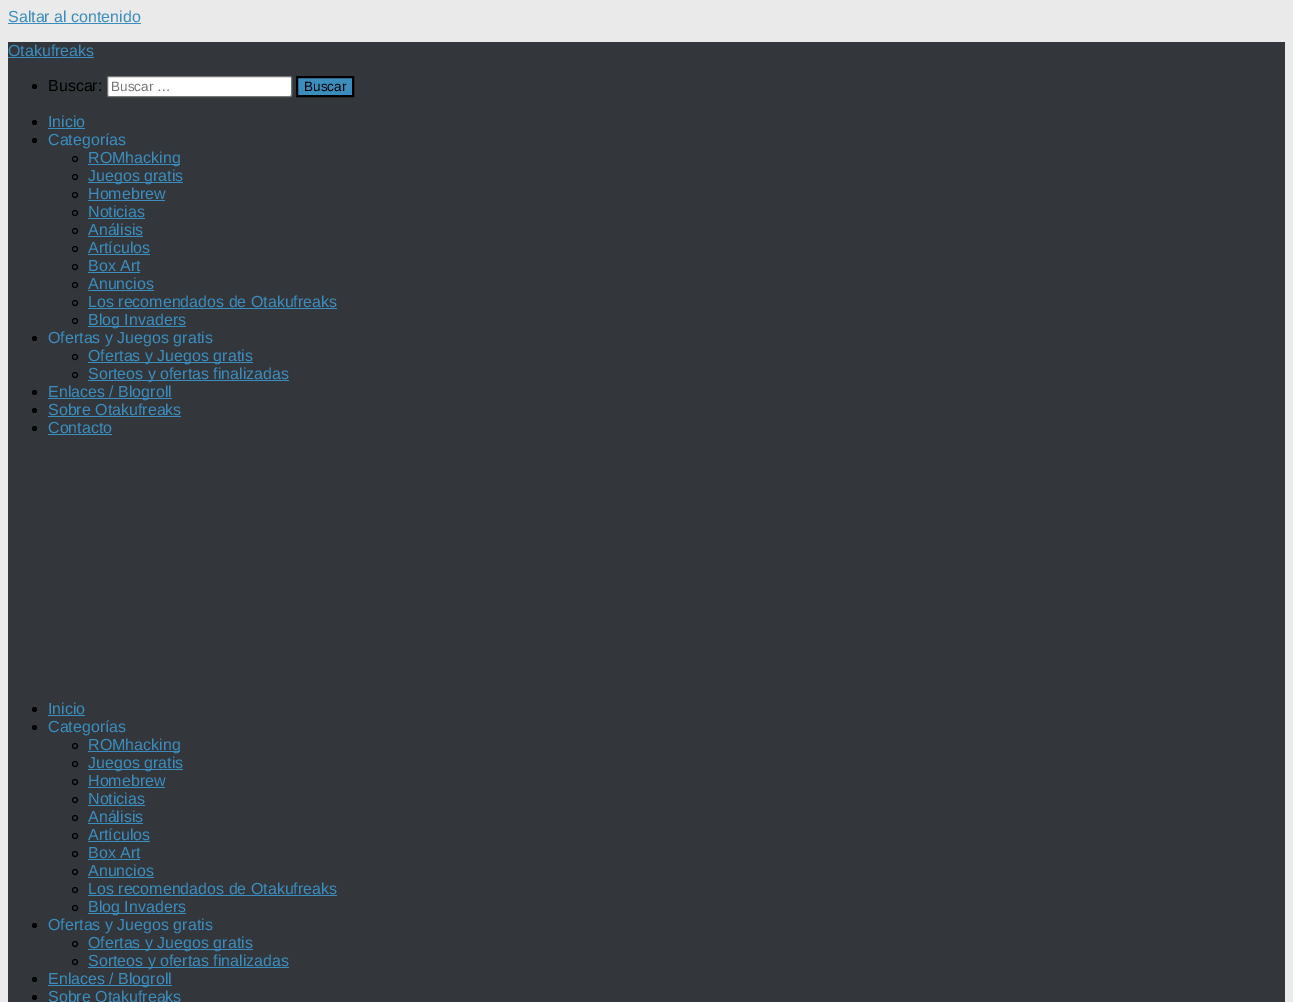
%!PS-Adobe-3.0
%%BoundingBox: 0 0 1293 1002
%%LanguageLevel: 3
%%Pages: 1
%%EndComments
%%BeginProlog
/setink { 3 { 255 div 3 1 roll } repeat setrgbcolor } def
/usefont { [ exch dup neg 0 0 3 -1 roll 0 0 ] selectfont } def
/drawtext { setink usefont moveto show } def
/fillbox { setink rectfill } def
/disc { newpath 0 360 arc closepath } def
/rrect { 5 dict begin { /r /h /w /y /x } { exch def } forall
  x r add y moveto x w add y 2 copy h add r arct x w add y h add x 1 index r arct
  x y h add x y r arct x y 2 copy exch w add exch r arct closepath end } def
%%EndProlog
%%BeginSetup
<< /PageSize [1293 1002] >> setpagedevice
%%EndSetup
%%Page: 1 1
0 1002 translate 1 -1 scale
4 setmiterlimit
0 0 1293 1002 234 234 234 fillbox
(Saltar al contenido) 8 22 /LiberationSans-Regular 16 59 141 189 drawtext
8 23 133 1 59 141 189 fillbox
8 42 1277 960 51 54 59 fillbox
(Otakufreaks) 8 56 /LiberationSans-Regular 16 59 141 189 drawtext
8 57 86 1 59 141 189 fillbox
0 0 0 setink
34.5 86.5 2.5 disc fill
(Buscar:) 48 91 /LiberationSans-Regular 16 0 0 0 drawtext
255 255 255 setink
107.5 76.5 184 20 1.5 rrect gsave fill grestore
118 118 118 setink
stroke
(Buscar …) 111 91 /LiberationSans-Regular 13.5 117 117 117 drawtext
59 141 189 setink
297 77 moveto 353 77 lineto 353 96 lineto 297 96 lineto closepath gsave fill grestore
0 0 0 setink
2 setlinewidth
stroke
(Buscar) 304 91 /LiberationSans-Regular 13.5 0 0 0 drawtext
34.5 122.5 2.5 disc fill
(Inicio) 48 127 /LiberationSans-Regular 16 59 141 189 drawtext
48 128 37 1 59 141 189 fillbox
0 0 0 setink
34.5 140.5 2.5 disc fill
(Categorías) 48 145 /LiberationSans-Regular 16 59 141 189 drawtext
0 0 0 setink
1 setlinewidth
75 159 2.5 disc stroke
88 164 92 1 59 141 189 fillbox
(ROMhacking) 88 163 /LiberationSans-Regular 16 59 141 189 drawtext
0 0 0 setink
75 177 2.5 disc stroke
88 182 95 1 59 141 189 fillbox
(Juegos gratis) 88 181 /LiberationSans-Regular 16 59 141 189 drawtext
0 0 0 setink
75 195 2.5 disc stroke
(Homebrew) 88 199 /LiberationSans-Regular 16 59 141 189 drawtext
88 200 77 1 59 141 189 fillbox
0 0 0 setink
75 213 2.5 disc stroke
(Noticias) 88 217 /LiberationSans-Regular 16 59 141 189 drawtext
88 218 57 1 59 141 189 fillbox
0 0 0 setink
75 231 2.5 disc stroke
(Análisis) 88 235 /LiberationSans-Regular 16 59 141 189 drawtext
88 236 55 1 59 141 189 fillbox
0 0 0 setink
75 249 2.5 disc stroke
(Artículos) 88 253 /LiberationSans-Regular 16 59 141 189 drawtext
88 254 62 1 59 141 189 fillbox
0 0 0 setink
75 267 2.5 disc stroke
(Box Art) 88 271 /LiberationSans-Regular 16 59 141 189 drawtext
88 272 52 1 59 141 189 fillbox
0 0 0 setink
75 285 2.5 disc stroke
(Anuncios) 88 289 /LiberationSans-Regular 16 59 141 189 drawtext
88 290 66 1 59 141 189 fillbox
0 0 0 setink
75 303 2.5 disc stroke
(Los recomendados de Otakufreaks) 88 307 /LiberationSans-Regular 16 59 141 189 drawtext
88 308 249 1 59 141 189 fillbox
0 0 0 setink
75 321 2.5 disc stroke
88 326 98 1 59 141 189 fillbox
(Blog Invaders) 88 325 /LiberationSans-Regular 16 59 141 189 drawtext
0 0 0 setink
34.5 338.5 2.5 disc fill
(Ofertas y Juegos gratis) 48 343 /LiberationSans-Regular 16 59 141 189 drawtext
0 0 0 setink
75 357 2.5 disc stroke
88 362 165 1 59 141 189 fillbox
(Ofertas y Juegos gratis) 88 361 /LiberationSans-Regular 16 59 141 189 drawtext
0 0 0 setink
75 375 2.5 disc stroke
88 380 201 1 59 141 189 fillbox
(Sorteos y ofertas finalizadas) 88 379 /LiberationSans-Regular 16 59 141 189 drawtext
0 0 0 setink
34.5 392.5 2.5 disc fill
48 398 124 1 59 141 189 fillbox
(Enlaces / Blogroll) 48 397 /LiberationSans-Regular 16 59 141 189 drawtext
0 0 0 setink
34.5 410.5 2.5 disc fill
(Sobre Otakufreaks) 48 415 /LiberationSans-Regular 16 59 141 189 drawtext
48 416 133 1 59 141 189 fillbox
0 0 0 setink
34.5 428.5 2.5 disc fill
(Contacto) 48 433 /LiberationSans-Regular 16 59 141 189 drawtext
48 434 64 1 59 141 189 fillbox
0 0 0 setink
34.5 709.5 2.5 disc fill
(Inicio) 48 714 /LiberationSans-Regular 16 59 141 189 drawtext
48 715 37 1 59 141 189 fillbox
0 0 0 setink
34.5 727.5 2.5 disc fill
(Categorías) 48 732 /LiberationSans-Regular 16 59 141 189 drawtext
0 0 0 setink
75 746 2.5 disc stroke
88 751 92 1 59 141 189 fillbox
(ROMhacking) 88 750 /LiberationSans-Regular 16 59 141 189 drawtext
0 0 0 setink
75 764 2.5 disc stroke
88 769 95 1 59 141 189 fillbox
(Juegos gratis) 88 768 /LiberationSans-Regular 16 59 141 189 drawtext
0 0 0 setink
75 782 2.5 disc stroke
(Homebrew) 88 786 /LiberationSans-Regular 16 59 141 189 drawtext
88 787 77 1 59 141 189 fillbox
0 0 0 setink
75 800 2.5 disc stroke
(Noticias) 88 804 /LiberationSans-Regular 16 59 141 189 drawtext
88 805 57 1 59 141 189 fillbox
0 0 0 setink
75 818 2.5 disc stroke
(Análisis) 88 822 /LiberationSans-Regular 16 59 141 189 drawtext
88 823 55 1 59 141 189 fillbox
0 0 0 setink
75 836 2.5 disc stroke
(Artículos) 88 840 /LiberationSans-Regular 16 59 141 189 drawtext
88 841 62 1 59 141 189 fillbox
0 0 0 setink
75 854 2.5 disc stroke
(Box Art) 88 858 /LiberationSans-Regular 16 59 141 189 drawtext
88 859 52 1 59 141 189 fillbox
0 0 0 setink
75 872 2.5 disc stroke
(Anuncios) 88 876 /LiberationSans-Regular 16 59 141 189 drawtext
88 877 66 1 59 141 189 fillbox
0 0 0 setink
75 890 2.5 disc stroke
(Los recomendados de Otakufreaks) 88 894 /LiberationSans-Regular 16 59 141 189 drawtext
88 895 249 1 59 141 189 fillbox
0 0 0 setink
75 908 2.5 disc stroke
88 913 98 1 59 141 189 fillbox
(Blog Invaders) 88 912 /LiberationSans-Regular 16 59 141 189 drawtext
0 0 0 setink
34.5 925.5 2.5 disc fill
(Ofertas y Juegos gratis) 48 930 /LiberationSans-Regular 16 59 141 189 drawtext
0 0 0 setink
75 944 2.5 disc stroke
88 949 165 1 59 141 189 fillbox
(Ofertas y Juegos gratis) 88 948 /LiberationSans-Regular 16 59 141 189 drawtext
0 0 0 setink
75 962 2.5 disc stroke
88 967 201 1 59 141 189 fillbox
(Sorteos y ofertas finalizadas) 88 966 /LiberationSans-Regular 16 59 141 189 drawtext
0 0 0 setink
34.5 979.5 2.5 disc fill
48 985 124 1 59 141 189 fillbox
(Enlaces / Blogroll) 48 984 /LiberationSans-Regular 16 59 141 189 drawtext
0 0 0 setink
34.5 997.5 2.5 disc fill
(Sobre Otakufreaks) 48 1002 /LiberationSans-Regular 16 59 141 189 drawtext
showpage
%%EOF
